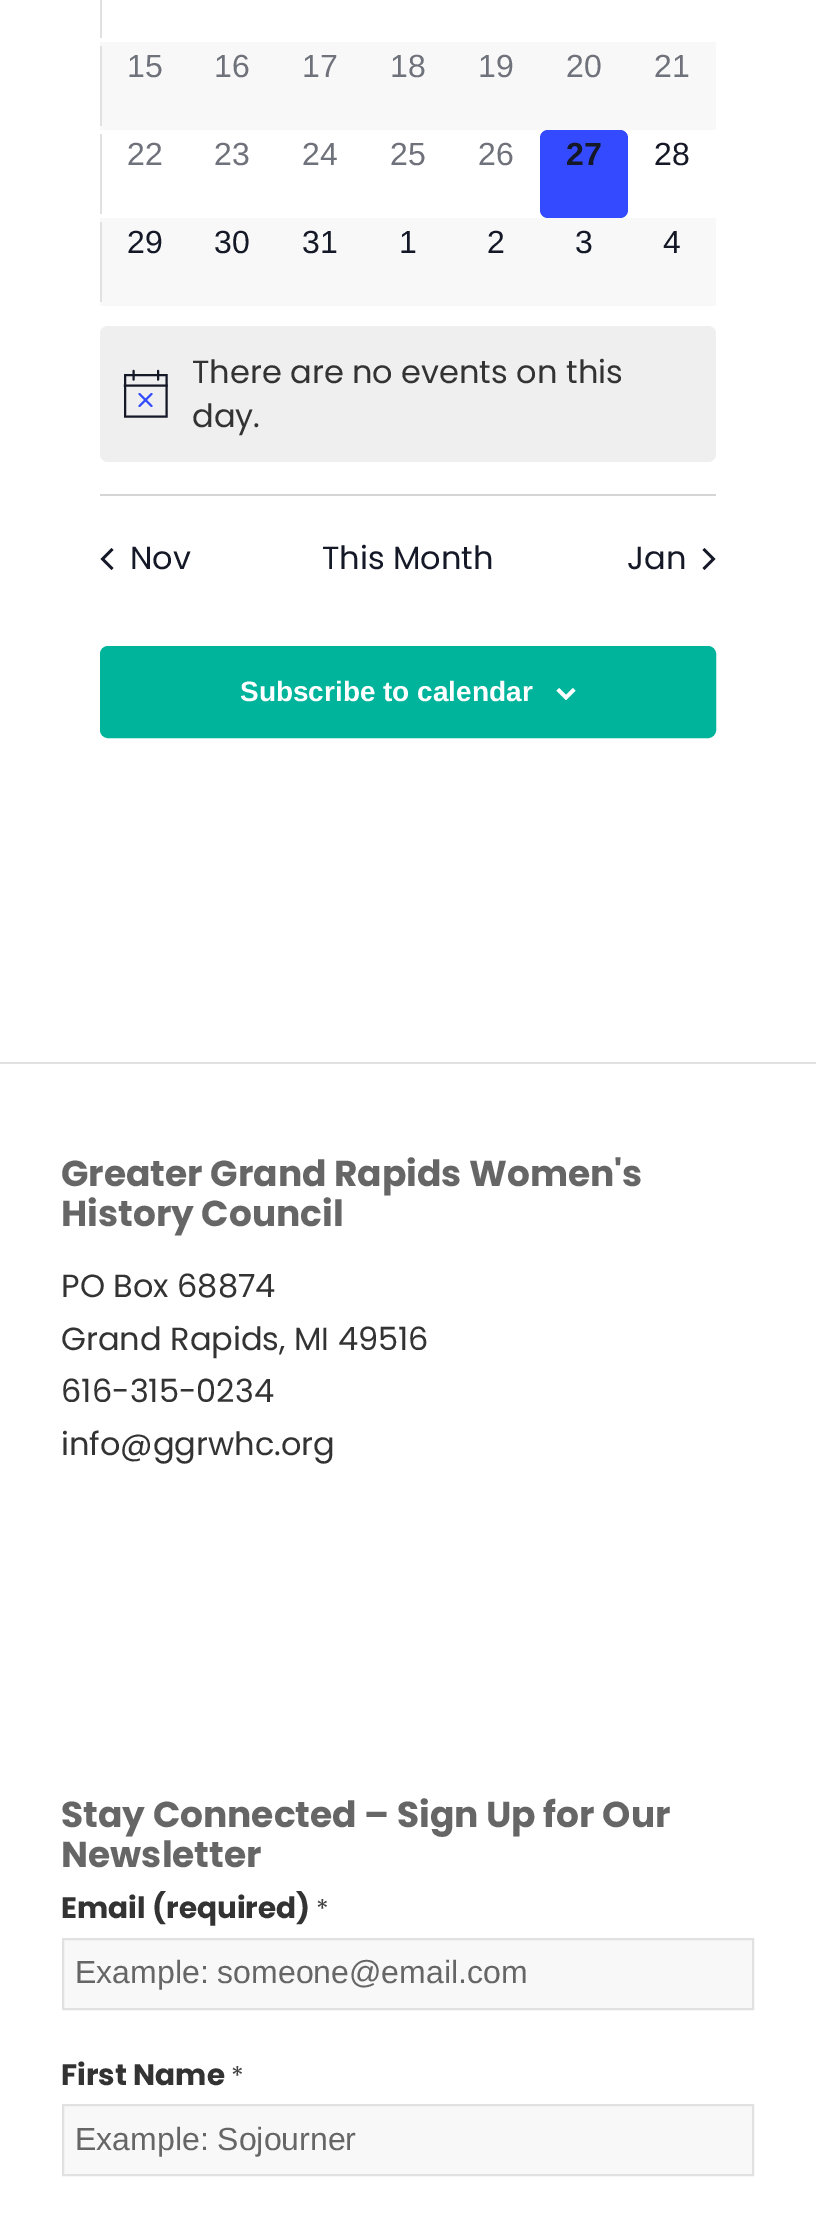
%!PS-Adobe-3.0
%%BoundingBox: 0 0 816 2220
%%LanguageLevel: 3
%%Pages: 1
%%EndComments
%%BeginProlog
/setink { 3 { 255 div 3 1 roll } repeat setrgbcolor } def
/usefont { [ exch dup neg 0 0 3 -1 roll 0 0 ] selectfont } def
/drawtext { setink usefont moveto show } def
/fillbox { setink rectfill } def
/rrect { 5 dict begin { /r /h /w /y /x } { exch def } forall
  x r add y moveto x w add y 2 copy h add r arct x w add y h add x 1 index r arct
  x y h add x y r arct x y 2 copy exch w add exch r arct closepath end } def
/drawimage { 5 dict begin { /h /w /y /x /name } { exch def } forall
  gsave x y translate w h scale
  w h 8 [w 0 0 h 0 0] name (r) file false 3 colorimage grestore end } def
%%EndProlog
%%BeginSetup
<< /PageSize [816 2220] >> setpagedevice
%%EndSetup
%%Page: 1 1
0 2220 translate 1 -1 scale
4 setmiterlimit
0 0 816 2220 255 255 255 fillbox
100 42 616 264 248 248 248 fillbox
100 0 2 38 225 225 225 fillbox
100 46 2 80 225 225 225 fillbox
(15) 127 77 /LiberationSans-Regular 32 111 114 123 drawtext
(16) 214 77 /LiberationSans-Regular 32 111 114 123 drawtext
(17) 302 77 /LiberationSans-Regular 32 111 114 123 drawtext
(18) 390 77 /LiberationSans-Regular 32 111 114 123 drawtext
(19) 478 77 /LiberationSans-Regular 32 111 114 123 drawtext
(20) 566 77 /LiberationSans-Regular 32 111 114 123 drawtext
(21) 654 77 /LiberationSans-Regular 32 111 114 123 drawtext
100 130 616 88 255 255 255 fillbox
100 134 2 80 225 225 225 fillbox
(22) 127 165 /LiberationSans-Regular 32 111 114 123 drawtext
(23) 214 165 /LiberationSans-Regular 32 111 114 123 drawtext
(24) 302 165 /LiberationSans-Regular 32 111 114 123 drawtext
(25) 390 165 /LiberationSans-Regular 32 111 114 123 drawtext
(26) 478 165 /LiberationSans-Regular 32 111 114 123 drawtext
51 74 255 setink
540 130 88 88 8 rrect fill
(27) 566 165 /LiberationSans-Bold 32 20 24 39 drawtext
(28) 654 165 /LiberationSans-Regular 32 20 24 39 drawtext
100 222 2 80 225 225 225 fillbox
(29) 127 253 /LiberationSans-Regular 32 20 24 39 drawtext
(30) 214 253 /LiberationSans-Regular 32 20 24 39 drawtext
(31) 302 253 /LiberationSans-Regular 32 20 24 39 drawtext
(1) 399 253 /LiberationSans-Regular 32 20 24 39 drawtext
(2) 487 253 /LiberationSans-Regular 32 20 24 39 drawtext
(3) 575 253 /LiberationSans-Regular 32 20 24 39 drawtext
(4) 663 253 /LiberationSans-Regular 32 20 24 39 drawtext
239 239 240 setink
100 326 616 136 8 rrect fill
20 24 39 setink
2.1 setlinewidth
125 375 moveto 166.5 375 lineto 166.5 416.5 lineto 125 416.5 lineto closepath stroke
51 74 255 setink
1 setlinecap
139.5 394 moveto 151.5 406 lineto 151.5 394 moveto 139.5 406 lineto stroke
20 24 39 setink
133.5 371 moveto 133.5 379.5 lineto 158 371 moveto 158 379.5 lineto stroke
2 setlinecap
125 385.5 moveto 166.5 385.5 lineto stroke
(There are no events on this) 192 383 /Poppins-Regular 32 51 51 51 drawtext
(day.) 192 427 /Poppins-Regular 32 51 51 51 drawtext
100 494 616 2 213 213 213 fillbox
20 24 39 setink
113.5 568 moveto 111.5 570 lineto 100.5 559 lineto 111.5 548 lineto 113.5 550 lineto 104.5 559 lineto closepath fill
(Nov) 130 569 /Poppins-Regular 32 20 24 39 drawtext
(This Month) 322 569 /Poppins-Regular 32 20 24 39 drawtext
(Jan) 627 569 /Poppins-Regular 32 20 24 39 drawtext
702.5 550 moveto 704.5 548 lineto 715.5 559 lineto 704.5 570 lineto 702.5 568 lineto 711.5 559 lineto closepath fill
0 180 156 setink
101 647 614 90 7 rrect gsave fill grestore
2 setlinewidth
0 setlinecap
stroke
(Subscribe to calendar) 240 701 /LiberationSans-Bold 28 255 255 255 drawtext
(assets/img1.rgb) 556 688 20 12 drawimage
0 1062 816 2 225 225 225 fillbox
(Greater Grand Rapids Women's) 61 1186 /Poppins-Bold 36 102 102 102 drawtext
(History Council) 61 1226 /Poppins-Bold 36 102 102 102 drawtext
(PO Box 68874) 61 1297 /Poppins-Regular 32 51 51 51 drawtext
(Grand Rapids, MI 49516) 61 1350 /Poppins-Regular 32 51 51 51 drawtext
(616-315-0234) 61 1402 /Poppins-Regular 32 51 51 51 drawtext
(info@ggrwhc.org) 61 1455 /Poppins-Regular 32 51 51 51 drawtext
(Stay Connected – Sign Up for Our) 61 1827 /Poppins-Bold 36 102 102 102 drawtext
(Newsletter) 61 1867 /Poppins-Bold 36 102 102 102 drawtext
(Email \(required\)) 61 1918 /Poppins-Bold 29.5 51 51 51 drawtext
(*) 316 1918 /Poppins-Regular 26 68 68 68 drawtext
248 248 248 setink
63 1939 moveto 753 1939 lineto 753 2009 lineto 63 2009 lineto closepath gsave fill grestore
225 225 225 setink
stroke
(Example: someone@email.com) 75 1983 /LiberationSans-Regular 32 102 102 102 drawtext
(First Name) 61 2085 /Poppins-Bold 29.5 51 51 51 drawtext
(*) 231 2085 /Poppins-Regular 26 68 68 68 drawtext
248 248 248 setink
63 2105 moveto 753 2105 lineto 753 2175 lineto 63 2175 lineto closepath gsave fill grestore
225 225 225 setink
stroke
(Example: Sojourner) 75 2150 /LiberationSans-Regular 32 102 102 102 drawtext
showpage
%%EOF
